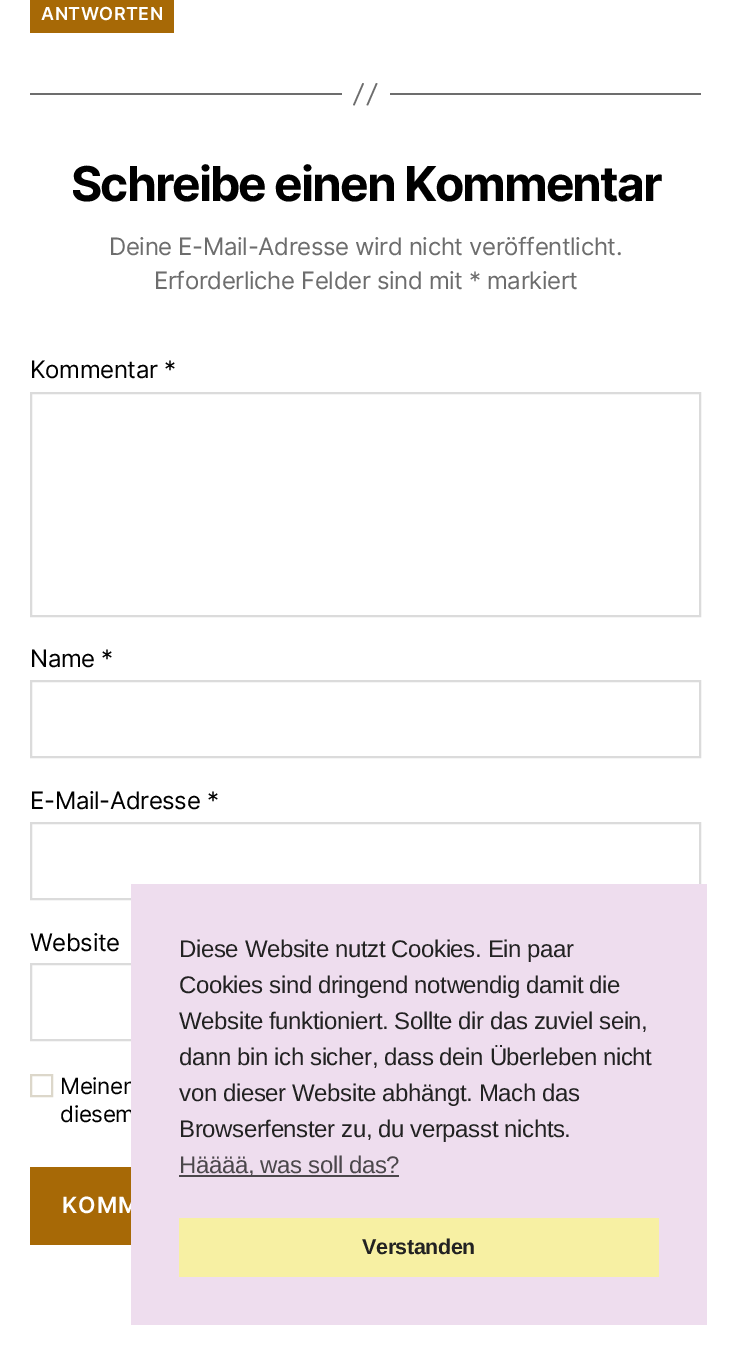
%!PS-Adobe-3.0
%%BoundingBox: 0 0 730 1348
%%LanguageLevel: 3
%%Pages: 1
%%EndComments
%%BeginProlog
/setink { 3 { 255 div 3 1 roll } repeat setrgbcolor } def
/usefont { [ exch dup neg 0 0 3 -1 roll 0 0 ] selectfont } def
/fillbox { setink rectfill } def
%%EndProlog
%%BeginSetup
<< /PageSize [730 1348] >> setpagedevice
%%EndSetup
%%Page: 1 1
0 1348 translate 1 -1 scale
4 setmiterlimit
0 0 730 1348 255 255 255 fillbox
30 0 144 33 167 105 6 fillbox
/Inter-SemiBold 18 usefont
255 255 255 setink
41 20 moveto 0.5 0 (ANTWORTEN) ashow
390 93 311 2 109 109 109 fillbox
30 93 312 2 109 109 109 fillbox
362.5 83 moveto 364 83.5 lineto 354.5 105.5 lineto 353 105 lineto closepath 376 83 moveto 377.5 83.5 lineto 368 105.5 lineto 366.5 105 lineto closepath fill
/Inter-Bold 48 usefont
0 0 0 setink
71 201 moveto -2 0 (Schreibe einen Kommentar) ashow
/Inter-Regular 24 usefont
109 109 109 setink
109 255 moveto -0.4 0 (Deine E-Mail-Adresse wird nicht veröffentlicht.) ashow
154 289 moveto -0.4 0 (Erforderliche Felder sind mit * markiert) ashow
0 0 0 setink
30 378 moveto -0.4 0 (Kommentar *) ashow
219 219 219 setink
2 setlinewidth
31 393 669 223 rectstroke
0 0 0 setink
30 667 moveto -0.4 0 (Name *) ashow
219 219 219 setink
31 681 669 76 rectstroke
0 0 0 setink
30 809 moveto -0.4 0 (E-Mail-Adresse *) ashow
219 219 219 setink
31 823 669 76 rectstroke
0 0 0 setink
30 951 moveto -0.4 0 (Website) ashow
219 219 219 setink
31 964 669 76 rectstroke
220 215 202 setink
31 1075 21 21 rectstroke
/Inter-Regular 22.5 usefont
0 0 0 setink
60 1094 moveto -0.4 0 (Meinen) ashow
60 1122 moveto -0.4 0 (diesem) ashow
30 1167 101 78 167 105 6 fillbox
/Inter-SemiBold 22.5 usefont
255 255 255 setink
62 1213 moveto 1 0 (KOMM) ashow
131 884 576 441 238 221 238 fillbox
/LiberationSans-Regular 24 usefont
34 34 34 setink
179 957 moveto -0.4 0 (Diese Website nutzt Cookies. Ein paar) ashow
179 993 moveto -0.4 0 (Cookies sind dringend notwendig damit die) ashow
179 1029 moveto -0.4 0 (Website funktioniert. Sollte dir das zuviel sein,) ashow
179 1065 moveto -0.4 0 (dann bin ich sicher, dass dein Überleben nicht) ashow
179 1101 moveto -0.4 0 (von dieser Website abhängt. Mach das) ashow
179 1137 moveto -0.4 0 (Browserfenster zu, du verpasst nichts.) ashow
179 1175 220 2 75 71 75 fillbox
179 1173 moveto -0.4 0 (Hääää, was soll das?) ashow
179 1218 480 59 247 240 163 fillbox
/LiberationSans-Bold 21.5 usefont
34 34 34 setink
362 1254 moveto -0.4 0 (Verstanden) ashow
showpage
%%EOF
